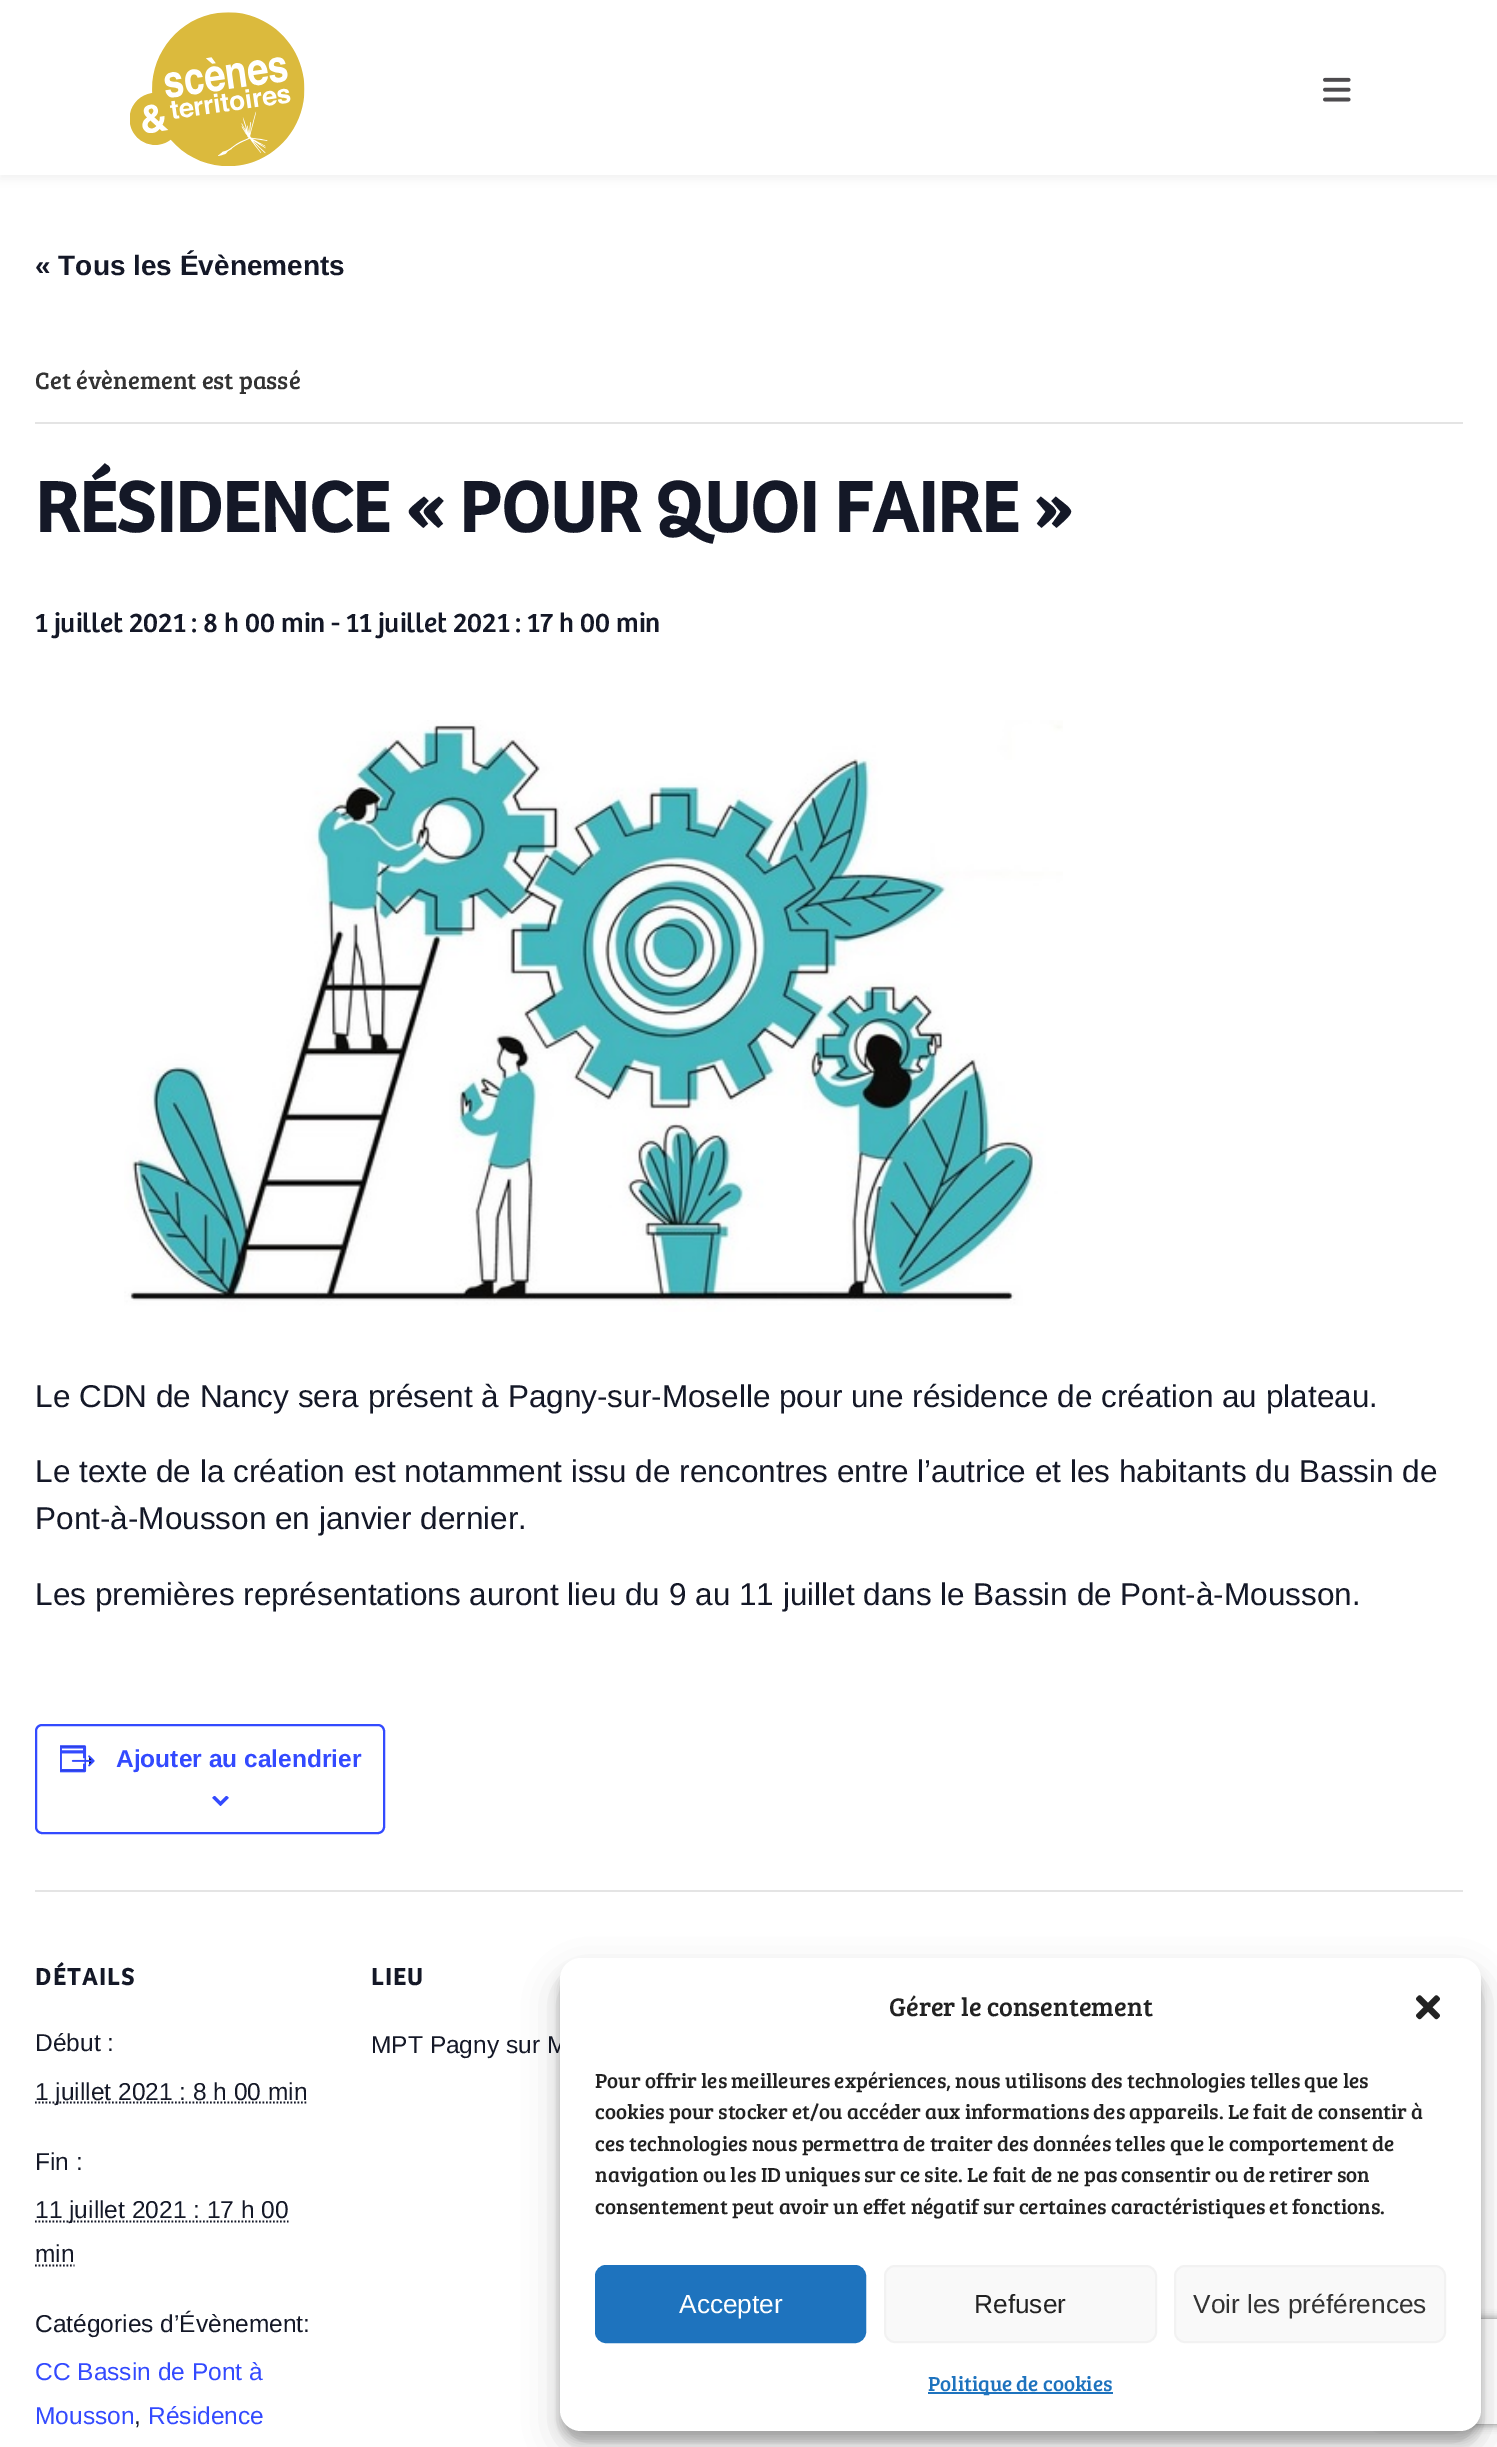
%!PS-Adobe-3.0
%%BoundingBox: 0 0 1497 2447
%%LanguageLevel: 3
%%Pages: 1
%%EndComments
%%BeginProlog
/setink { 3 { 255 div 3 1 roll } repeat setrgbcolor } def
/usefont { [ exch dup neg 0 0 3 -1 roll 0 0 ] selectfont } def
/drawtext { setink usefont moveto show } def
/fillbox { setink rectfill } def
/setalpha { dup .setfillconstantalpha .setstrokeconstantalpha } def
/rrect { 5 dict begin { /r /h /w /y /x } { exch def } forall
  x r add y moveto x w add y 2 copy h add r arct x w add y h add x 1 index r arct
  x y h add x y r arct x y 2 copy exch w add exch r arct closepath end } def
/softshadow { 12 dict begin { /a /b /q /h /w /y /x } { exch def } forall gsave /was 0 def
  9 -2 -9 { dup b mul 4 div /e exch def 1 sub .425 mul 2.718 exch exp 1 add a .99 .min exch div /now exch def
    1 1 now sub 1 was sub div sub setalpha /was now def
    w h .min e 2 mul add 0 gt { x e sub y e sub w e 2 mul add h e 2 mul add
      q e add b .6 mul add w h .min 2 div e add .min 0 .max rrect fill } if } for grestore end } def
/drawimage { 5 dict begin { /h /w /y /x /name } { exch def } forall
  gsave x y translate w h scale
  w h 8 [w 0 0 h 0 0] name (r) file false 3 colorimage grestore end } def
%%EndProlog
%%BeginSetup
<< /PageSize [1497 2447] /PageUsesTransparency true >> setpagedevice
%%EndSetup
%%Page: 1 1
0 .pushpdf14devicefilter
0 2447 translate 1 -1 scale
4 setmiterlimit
0 0 1497 2447 255 255 255 fillbox
0 0 0 setink
0 4 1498 175 0 5 0.05 softshadow
0 0 1497 175 255 255 255 fillbox
(assets/img1.rgb) 130 12 175 154 drawimage
(assets/img2.rgb) 1323 77 28 25 drawimage
(« Tous les Évènements) 35 275 /LiberationSans-Bold 28 20 24 39 drawtext
35 422 1428 2 228 228 228 fillbox
(Cet évènement est passé) 35 389 /BreeSerif-Regular 24.5 51 51 51 drawtext
(RÉSIDENCE « POUR QUOI FAIRE ») 35 532 /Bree-Bold 73.5 20 24 39 drawtext
(1 juillet 2021 : 8 h 00 min - 11 juillet 2021 : 17 h 00 min) 35 632 /Bree-Regular 28 20 24 39 drawtext
(assets/img3.rgb) 124 720 939 592 drawimage
(Le CDN de Nancy sera présent à Pagny-sur-Moselle pour une résidence de création au plateau.) 35 1407 /LiberationSans-Regular 31.5 20 24 39 drawtext
(Le texte de la création est notamment issu de rencontres entre l’autrice et les habitants du Bassin de) 35 1482 /LiberationSans-Regular 31.5 20 24 39 drawtext
(Pont-à-Mousson en janvier dernier.) 35 1529 /LiberationSans-Regular 31.5 20 24 39 drawtext
(Les premières représentations auront lieu du 9 au 11 juillet dans le Bassin de Pont-à-Mousson.) 35 1605 /LiberationSans-Regular 31.5 20 24 39 drawtext
51 74 255 setink
2 setlinewidth
36 1725 348 108 6 rrect stroke
(assets/img4.rgb) 60 1745 35 28 drawimage
(Ajouter au calendrier) 116 1767 /LiberationSans-Bold 24.5 51 74 255 drawtext
(assets/img5.rgb) 212 1796 17 10 drawimage
35 1890 1428 2 228 228 228 fillbox
/Bree-Bold 24.5 usefont
20 24 39 setink
35 1985 moveto 1.75 0 (DÉTAILS) ashow
(Début :) 35 2051 /LiberationSans-Regular 24.5 20 24 39 drawtext
1.8 setlinewidth
[1.75 1.75] 0 setdash
35 2102.5 moveto 307.5 2102.5 lineto stroke
(1 juillet 2021 : 8 h 00 min) 35 2100 /LiberationSans-Regular 24.5 20 24 39 drawtext
(Fin :) 35 2170 /LiberationSans-Regular 24.5 20 24 39 drawtext
35 2221.5 moveto 288.5 2221.5 lineto stroke
(11 juillet 2021 : 17 h 00) 35 2218 /LiberationSans-Regular 24.5 20 24 39 drawtext
(min) 35 2262 /LiberationSans-Regular 24.5 20 24 39 drawtext
35 2265.5 moveto 74.5 2265.5 lineto stroke
(Catégories d’Évènement:) 35 2332 /LiberationSans-Regular 24.5 20 24 39 drawtext
(CC Bassin de Pont à) 35 2380 /LiberationSans-Regular 24.5 51 74 255 drawtext
(Mousson) 35 2424 /LiberationSans-Regular 24.5 51 74 255 drawtext
(,) 134 2424 /LiberationSans-Regular 24.5 20 24 39 drawtext
(Résidence) 148 2424 /LiberationSans-Regular 24.5 51 74 255 drawtext
/Bree-Bold 24.5 usefont
20 24 39 setink
371 1985 moveto 1.75 0 (LIEU) ashow
(MPT Pagny sur M) 371 2053 /LiberationSans-Regular 24.5 20 24 39 drawtext
gsave
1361 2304 moveto 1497 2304 lineto 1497 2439 lineto 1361 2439 lineto closepath 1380 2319 moveto 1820 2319 lineto 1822 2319 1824 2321 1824 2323 curveto 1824 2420 lineto 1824 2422 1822 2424 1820 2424 curveto 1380 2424 lineto 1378 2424 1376 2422 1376 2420 curveto 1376 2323 lineto 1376 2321 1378 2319 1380 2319 curveto closepath eoclip newpath
128 128 128 setink
1376 2319 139 105 4 4.5 1 softshadow
grestore
0 0 0 setink
560 1969 921 472 21 5 0.23 softshadow
560 1976 921 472 21 17.5 0.19 softshadow
255 255 255 setink
560 1958 921 473 21 rrect fill
(Gérer le consentement) 889 2016 /BreeSerif-Regular 26.25 34 34 34 drawtext
(assets/img6.rgb) 1416 1995 24 25 drawimage
(Pour offrir les meilleures expériences, nous utilisons des technologies telles que les) 595 2088 /BreeSerif-Regular 21 34 34 34 drawtext
(cookies pour stocker et/ou accéder aux informations des appareils. Le fait de consentir à) 595 2119 /BreeSerif-Regular 21 34 34 34 drawtext
(ces technologies nous permettra de traiter des données telles que le comportement de) 595 2151 /BreeSerif-Regular 21 34 34 34 drawtext
(navigation ou les ID uniques sur ce site. Le fait de ne pas consentir ou de retirer son) 595 2182 /BreeSerif-Regular 21 34 34 34 drawtext
(consentement peut avoir un effet négatif sur certaines caractéristiques et fonctions.) 595 2214 /BreeSerif-Regular 21 34 34 34 drawtext
30 115 190 setink
596 2266 269 76 10 rrect gsave fill grestore
2 setlinewidth
[] 0 setdash
stroke
(Accepter) 679 2313 /LiberationSans-Regular 26.25 255 255 255 drawtext
249 249 249 setink
885 2266 271 76 10 rrect gsave fill grestore
242 242 242 setink
stroke
(Refuser) 974 2313 /LiberationSans-Regular 26.25 34 34 34 drawtext
249 249 249 setink
1175 2266 270 76 10 rrect gsave fill grestore
242 242 242 setink
stroke
(Voir les préférences) 1193 2313 /LiberationSans-Regular 26.25 51 51 51 drawtext
928 2392 185 2 30 115 190 fillbox
(Politique de cookies) 928 2391 /BreeSerif-Regular 21 30 115 190 drawtext
.poppdf14devicefilter showpage
%%EOF
